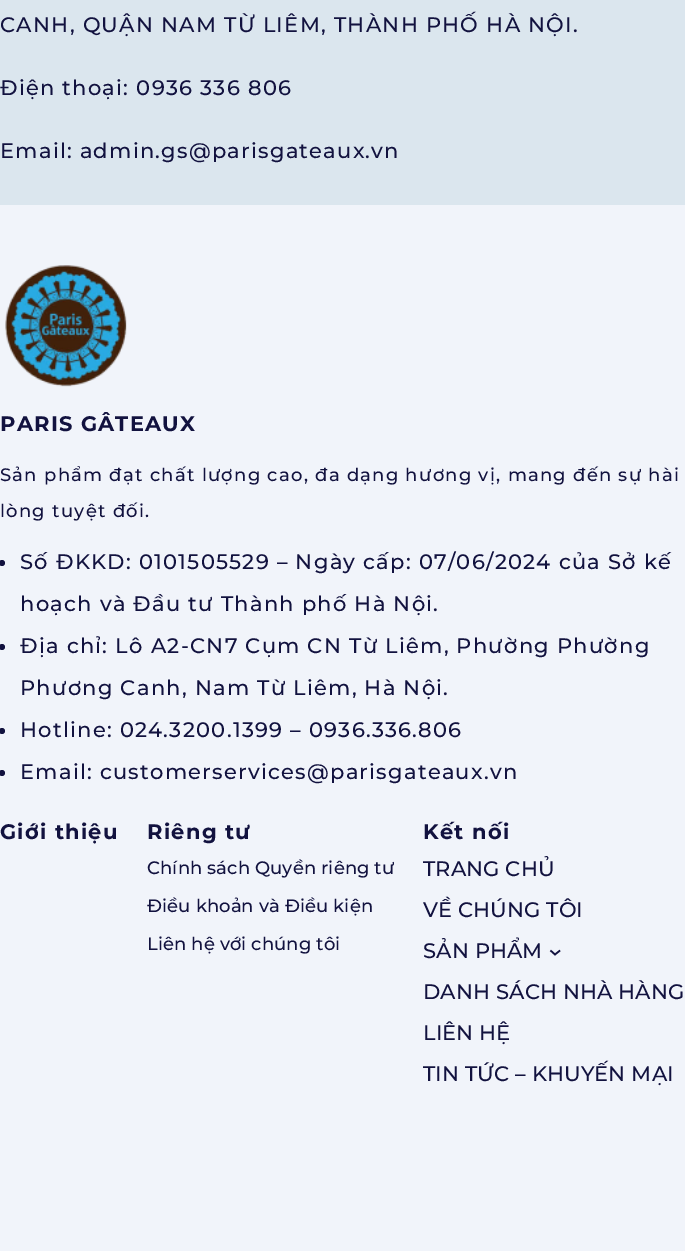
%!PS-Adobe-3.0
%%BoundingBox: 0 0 685 1251
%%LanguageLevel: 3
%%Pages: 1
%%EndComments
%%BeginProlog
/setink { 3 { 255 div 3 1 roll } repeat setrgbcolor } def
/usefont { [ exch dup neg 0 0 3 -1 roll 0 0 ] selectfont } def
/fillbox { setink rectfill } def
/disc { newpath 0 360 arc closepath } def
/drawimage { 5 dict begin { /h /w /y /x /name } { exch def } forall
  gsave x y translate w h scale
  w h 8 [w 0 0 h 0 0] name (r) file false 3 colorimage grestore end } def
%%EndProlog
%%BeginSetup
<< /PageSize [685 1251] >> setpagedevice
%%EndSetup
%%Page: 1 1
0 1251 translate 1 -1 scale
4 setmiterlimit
0 0 685 1251 219 230 238 fillbox
/Montserrat-Medium 21 usefont
18 18 63 setink
0 32 moveto 1.25 0 (CANH, QUẬN NAM TỪ LIÊM, THÀNH PHỐ HÀ NỘI.) ashow
0 95 moveto 1.25 0 (Điện thoại: 0936 336 806) ashow
0 158 moveto 1.25 0 (Email: admin.gs@parisgateaux.vn) ashow
0 205 685 1046 241 244 250 fillbox
(assets/img1.rgb) 5 265 122 122 drawimage
/Montserrat-Bold 21 usefont
18 18 63 setink
0 431 moveto 1.25 0 (PARIS GÂTEAUX) ashow
/Montserrat-Medium 18 usefont
0 481 moveto 1.25 0 (Sản phẩm đạt chất lượng cao, đa dạng hương vị, mang đến sự hài) ashow
0 517 moveto 1.25 0 (lòng tuyệt đối.) ashow
2 563 3 disc fill
/Montserrat-Medium 21 usefont
20 569 moveto 1.25 0 (Số ĐKKD: 0101505529 – Ngày cấp: 07/06/2024 của Sở kế) ashow
20 611 moveto 1.25 0 (hoạch và Đầu tư Thành phố Hà Nội.) ashow
2 647 3 disc fill
20 653 moveto 1.25 0 (Địa chỉ: Lô A2-CN7 Cụm CN Từ Liêm, Phường Phường) ashow
20 695 moveto 1.25 0 (Phương Canh, Nam Từ Liêm, Hà Nội.) ashow
2 731 3 disc fill
20 737 moveto 1.25 0 (Hotline: 024.3200.1399 – 0936.336.806) ashow
2 773 3 disc fill
20 779 moveto 1.25 0 (Email: customerservices@parisgateaux.vn) ashow
/Montserrat-Bold 21 usefont
0 839 moveto 1.25 0 (Giới thiệu) ashow
147 839 moveto 1.25 0 (Riêng tư) ashow
/Montserrat-Medium 18 usefont
147 874 moveto 0.1 0 (Chính sách Quyền riêng tư) ashow
147 912 moveto 0.1 0 (Điều khoản và Điều kiện) ashow
147 950 moveto 0.1 0 (Liên hệ với chúng tôi) ashow
/Montserrat-Bold 21 usefont
423 839 moveto 1.25 0 (Kết nối) ashow
/Montserrat-Medium 21 usefont
423 876 moveto 0.1 0 (TRANG CHỦ) ashow
423 917 moveto 0.1 0 (VỀ CHÚNG TÔI) ashow
423 958 moveto 0.1 0 (SẢN PHẨM) ashow
1.6 setlinewidth
550.5 950.5 moveto 555 954.5 lineto 560 950.5 lineto stroke
423 999 moveto 0.1 0 (DANH SÁCH NHÀ HÀNG) ashow
423 1040 moveto 0.1 0 (LIÊN HỆ) ashow
423 1081 moveto 0.1 0 (TIN TỨC – KHUYẾN MẠI) ashow
showpage
%%EOF
